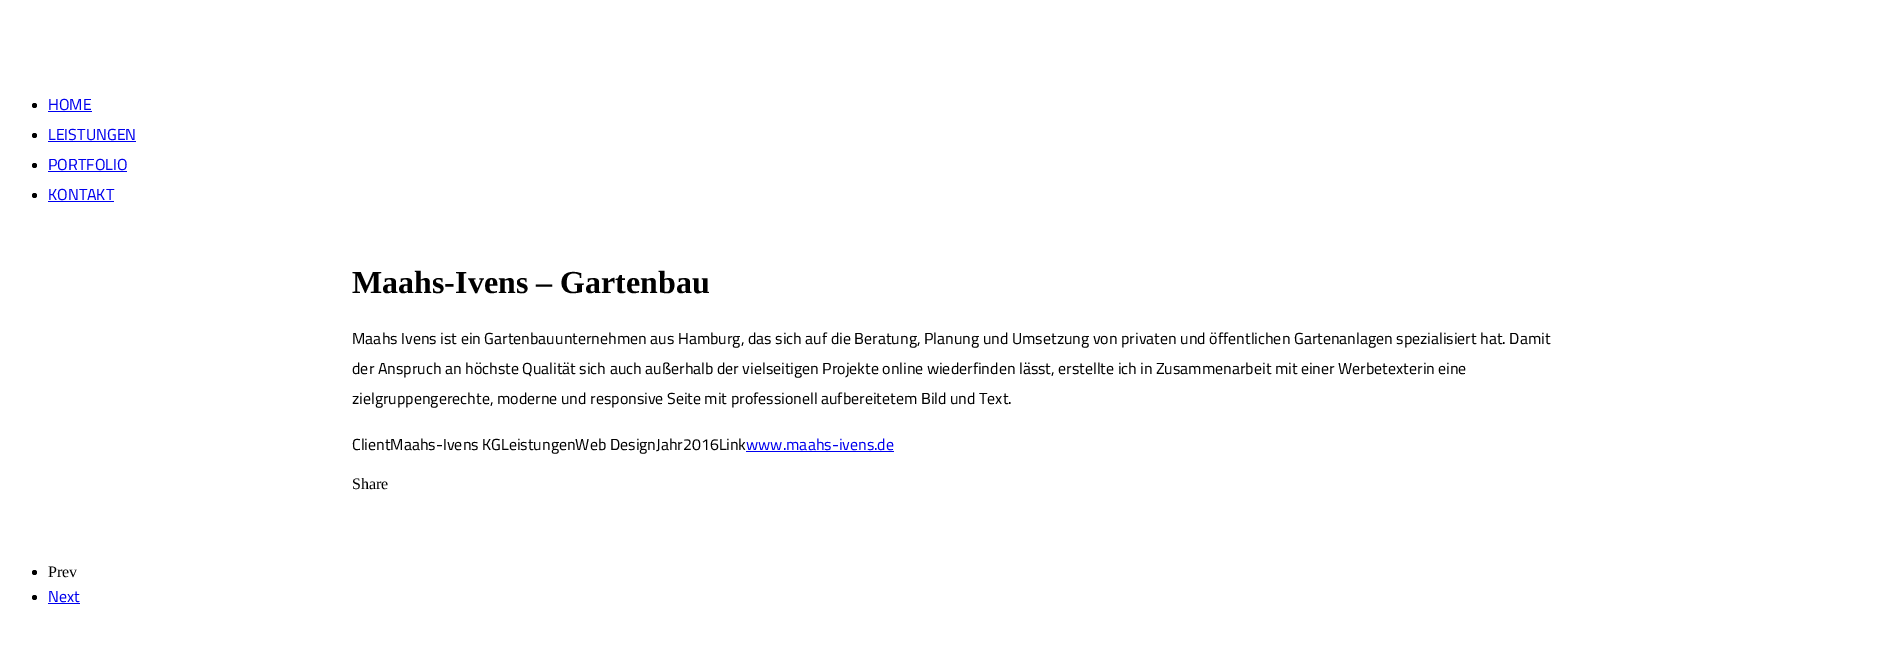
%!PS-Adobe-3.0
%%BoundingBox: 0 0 1903 662
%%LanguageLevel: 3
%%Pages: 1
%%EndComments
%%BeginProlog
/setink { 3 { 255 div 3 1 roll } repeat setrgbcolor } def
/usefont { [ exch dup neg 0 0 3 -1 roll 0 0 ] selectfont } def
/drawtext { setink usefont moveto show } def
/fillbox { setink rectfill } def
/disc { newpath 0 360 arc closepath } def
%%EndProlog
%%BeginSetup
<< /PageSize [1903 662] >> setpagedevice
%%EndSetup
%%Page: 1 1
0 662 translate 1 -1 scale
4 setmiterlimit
0 0 1903 662 255 255 255 fillbox
0 0 0 setink
34.5 105.5 2.5 disc fill
(HOME) 48 110 /Cairo-Regular 16 0 0 238 drawtext
48 111 44 1 0 0 238 fillbox
0 0 0 setink
34.5 135.5 2.5 disc fill
(LEISTUNGEN) 48 140 /Cairo-Regular 16 0 0 238 drawtext
48 141 88 1 0 0 238 fillbox
0 0 0 setink
34.5 165.5 2.5 disc fill
(PORTFOLIO) 48 170 /Cairo-Regular 16 0 0 238 drawtext
48 171 79 1 0 0 238 fillbox
0 0 0 setink
34.5 195.5 2.5 disc fill
(KONTAKT) 48 200 /Cairo-Regular 16 0 0 238 drawtext
48 201 66 1 0 0 238 fillbox
(Maahs-Ivens – Gartenbau) 352 293 /LiberationSerif-Bold 32 0 0 0 drawtext
(Maahs Ivens ist ein Gartenbauunternehmen aus Hamburg, das sich auf die Beratung, Planung und Umsetzung von privaten und öffentlichen Gartenanlagen spezialisiert hat. Damit) 352 344 /Cairo-Regular 16 0 0 0 drawtext
(der Anspruch an höchste Qualität sich auch außerhalb der vielseitigen Projekte online wiederfinden lässt, erstellte ich in Zusammenarbeit mit einer Werbetexterin eine) 352 374 /Cairo-Regular 16 0 0 0 drawtext
(zielgruppengerechte, moderne und responsive Seite mit professionell aufbereitetem Bild und Text.) 352 404 /Cairo-Regular 16 0 0 0 drawtext
(ClientMaahs-Ivens KGLeistungenWeb DesignJahr2016Link) 352 450 /Cairo-Regular 16 0 0 0 drawtext
(www.maahs-ivens.de) 746 450 /Cairo-Regular 16 0 0 238 drawtext
746 451 148 1 0 0 238 fillbox
(Share) 352 489 /LiberationSerif-Regular 16 0 0 0 drawtext
34.5 572.5 2.5 disc fill
(Prev) 48 577 /LiberationSerif-Regular 16 0 0 0 drawtext
34.5 597.5 2.5 disc fill
(Next) 48 602 /Cairo-Regular 16 0 0 238 drawtext
48 603 32 1 0 0 238 fillbox
showpage
%%EOF
